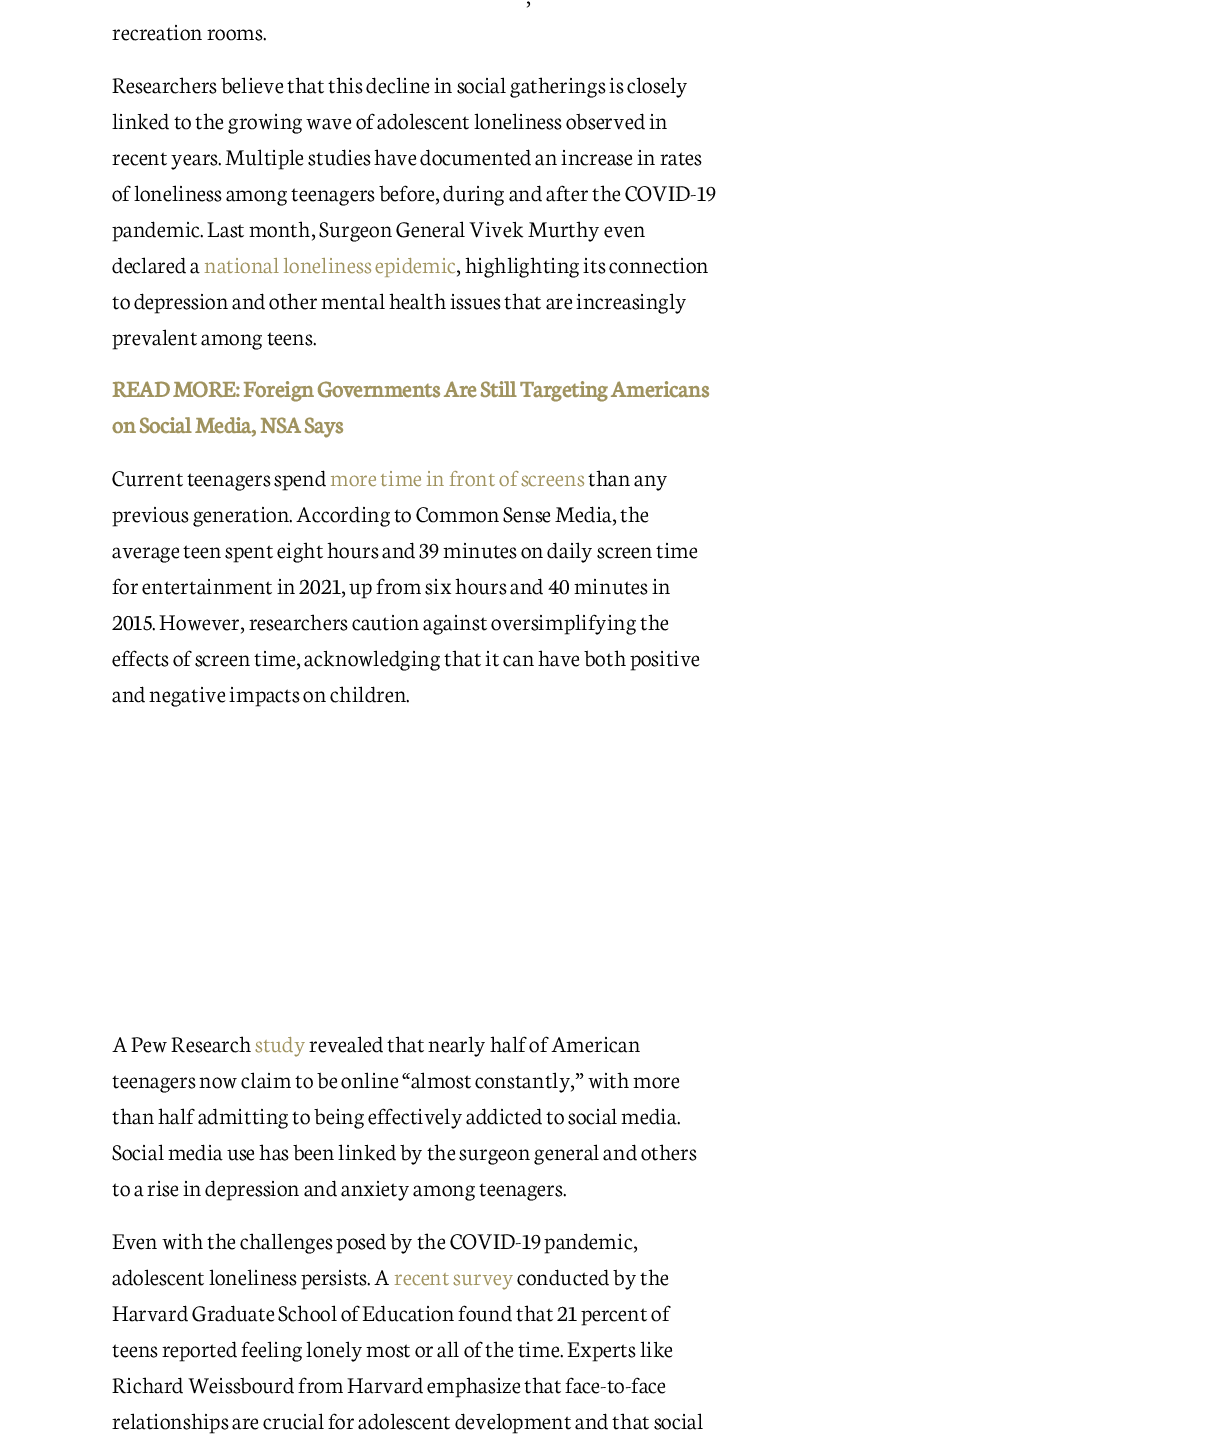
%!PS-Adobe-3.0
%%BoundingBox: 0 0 1208 1454
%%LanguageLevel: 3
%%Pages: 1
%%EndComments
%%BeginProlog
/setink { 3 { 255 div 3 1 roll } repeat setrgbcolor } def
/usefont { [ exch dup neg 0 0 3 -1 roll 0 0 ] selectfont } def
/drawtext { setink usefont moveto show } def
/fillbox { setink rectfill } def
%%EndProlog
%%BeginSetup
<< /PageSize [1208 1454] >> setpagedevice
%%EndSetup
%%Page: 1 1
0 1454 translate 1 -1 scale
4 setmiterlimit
0 0 1208 1454 255 255 255 fillbox
(,) 526 4 /Neuton-Light 24 0 0 0 drawtext
(recreation rooms.) 112 40 /Neuton-Light 24 0 0 0 drawtext
(Researchers believe that this decline in social gatherings is closely) 112 93 /Neuton-Light 24 0 0 0 drawtext
(linked to the growing wave of adolescent loneliness observed in) 112 129 /Neuton-Light 24 0 0 0 drawtext
(recent years. Multiple studies have documented an increase in rates) 112 165 /Neuton-Light 24 0 0 0 drawtext
(of loneliness among teenagers before, during and after the COVID-19) 112 201 /Neuton-Light 24 0 0 0 drawtext
(pandemic. Last month, Surgeon General Vivek Murthy even) 112 237 /Neuton-Light 24 0 0 0 drawtext
(declared a) 112 273 /Neuton-Light 24 0 0 0 drawtext
(national loneliness epidemic) 204 273 /Neuton-Light 24 160 147 95 drawtext
(, highlighting its connection) 456 273 /Neuton-Light 24 0 0 0 drawtext
(to depression and other mental health issues that are increasingly) 112 309 /Neuton-Light 24 0 0 0 drawtext
(prevalent among teens.) 112 345 /Neuton-Light 24 0 0 0 drawtext
(READ MORE: Foreign Governments Are Still Targeting Americans) 112 397 /Neuton-Bold 24 160 147 95 drawtext
(on Social Media, NSA Says) 112 433 /Neuton-Bold 24 160 147 95 drawtext
(Current teenagers spend) 112 486 /Neuton-Light 24 0 0 0 drawtext
(more time in front of screens) 330 486 /Neuton-Light 24 160 147 95 drawtext
(than any) 588 486 /Neuton-Light 24 0 0 0 drawtext
(previous generation. According to Common Sense Media, the) 112 522 /Neuton-Light 24 0 0 0 drawtext
(average teen spent eight hours and 39 minutes on daily screen time) 112 558 /Neuton-Light 24 0 0 0 drawtext
(for entertainment in 2021, up from six hours and 40 minutes in) 112 594 /Neuton-Light 24 0 0 0 drawtext
(2015. However, researchers caution against oversimplifying the) 112 630 /Neuton-Light 24 0 0 0 drawtext
(effects of screen time, acknowledging that it can have both positive) 112 666 /Neuton-Light 24 0 0 0 drawtext
(and negative impacts on children.) 112 702 /Neuton-Light 24 0 0 0 drawtext
(A Pew Research) 112 1052 /Neuton-Light 24 0 0 0 drawtext
(study) 255 1052 /Neuton-Light 24 160 147 95 drawtext
(revealed that nearly half of American) 309 1052 /Neuton-Light 24 0 0 0 drawtext
(teenagers now claim to be online “almost constantly,” with more) 112 1088 /Neuton-Light 24 0 0 0 drawtext
(than half admitting to being effectively addicted to social media.) 112 1124 /Neuton-Light 24 0 0 0 drawtext
(Social media use has been linked by the surgeon general and others) 112 1160 /Neuton-Light 24 0 0 0 drawtext
(to a rise in depression and anxiety among teenagers.) 112 1196 /Neuton-Light 24 0 0 0 drawtext
(Even with the challenges posed by the COVID-19 pandemic,) 112 1249 /Neuton-Light 24 0 0 0 drawtext
(adolescent loneliness persists. A) 112 1285 /Neuton-Light 24 0 0 0 drawtext
(recent survey) 394 1285 /Neuton-Light 24 160 147 95 drawtext
(conducted by the) 517 1285 /Neuton-Light 24 0 0 0 drawtext
(Harvard Graduate School of Education found that 21 percent of) 112 1321 /Neuton-Light 24 0 0 0 drawtext
(teens reported feeling lonely most or all of the time. Experts like) 112 1357 /Neuton-Light 24 0 0 0 drawtext
(Richard Weissbourd from Harvard emphasize that face-to-face) 112 1393 /Neuton-Light 24 0 0 0 drawtext
(relationships are crucial for adolescent development and that social) 112 1429 /Neuton-Light 24 0 0 0 drawtext
showpage
%%EOF
